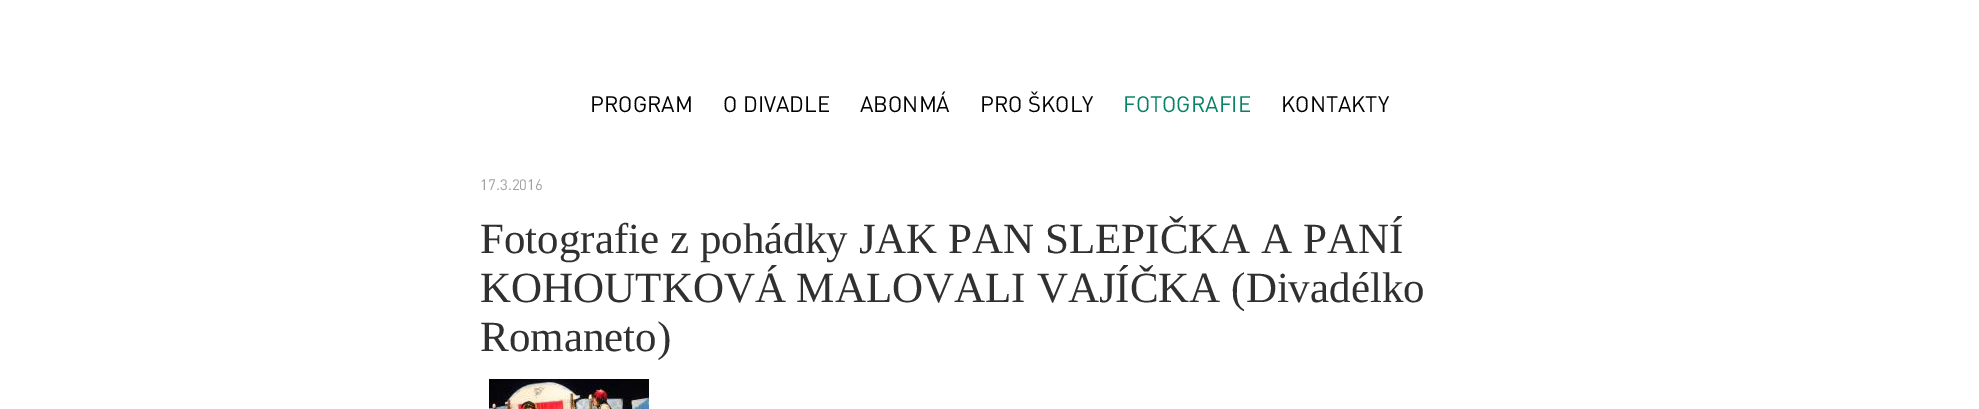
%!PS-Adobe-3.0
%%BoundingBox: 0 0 1979 409
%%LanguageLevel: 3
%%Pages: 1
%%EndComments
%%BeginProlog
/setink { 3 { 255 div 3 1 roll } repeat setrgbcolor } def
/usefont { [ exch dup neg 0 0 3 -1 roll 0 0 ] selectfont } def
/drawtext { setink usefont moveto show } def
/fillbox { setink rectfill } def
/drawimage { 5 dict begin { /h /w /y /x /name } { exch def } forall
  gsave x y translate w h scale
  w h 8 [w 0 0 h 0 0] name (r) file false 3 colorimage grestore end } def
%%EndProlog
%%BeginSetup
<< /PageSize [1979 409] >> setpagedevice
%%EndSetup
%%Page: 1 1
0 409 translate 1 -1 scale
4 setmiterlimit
0 0 1979 409 255 255 255 fillbox
(PROGRAM) 590 112 /DIN-Regular 22 0 0 0 drawtext
(O DIVADLE) 723 112 /DIN-Regular 22 0 0 0 drawtext
(ABONMÁ) 860 112 /DIN-Regular 22 0 0 0 drawtext
(PRO ŠKOLY) 980 112 /DIN-Regular 22 0 0 0 drawtext
(FOTOGRAFIE) 1123 112 /DIN-Regular 22 6 130 103 drawtext
(KONTAKTY) 1281 112 /DIN-Regular 22 0 0 0 drawtext
(17.3.2016) 480 190 /DIN-Regular 15 160 160 160 drawtext
(Fotografie z pohádky JAK PAN SLEPIČKA A PANÍ) 480 253 /LiberationSerif-Regular 43 48 48 48 drawtext
(KOHOUTKOVÁ MALOVALI VAJÍČKA \(Divadélko) 480 302 /LiberationSerif-Regular 43 48 48 48 drawtext
(Romaneto\)) 480 351 /LiberationSerif-Regular 43 48 48 48 drawtext
(assets/img1.rgb) 489 379 160 30 drawimage
showpage
%%EOF
